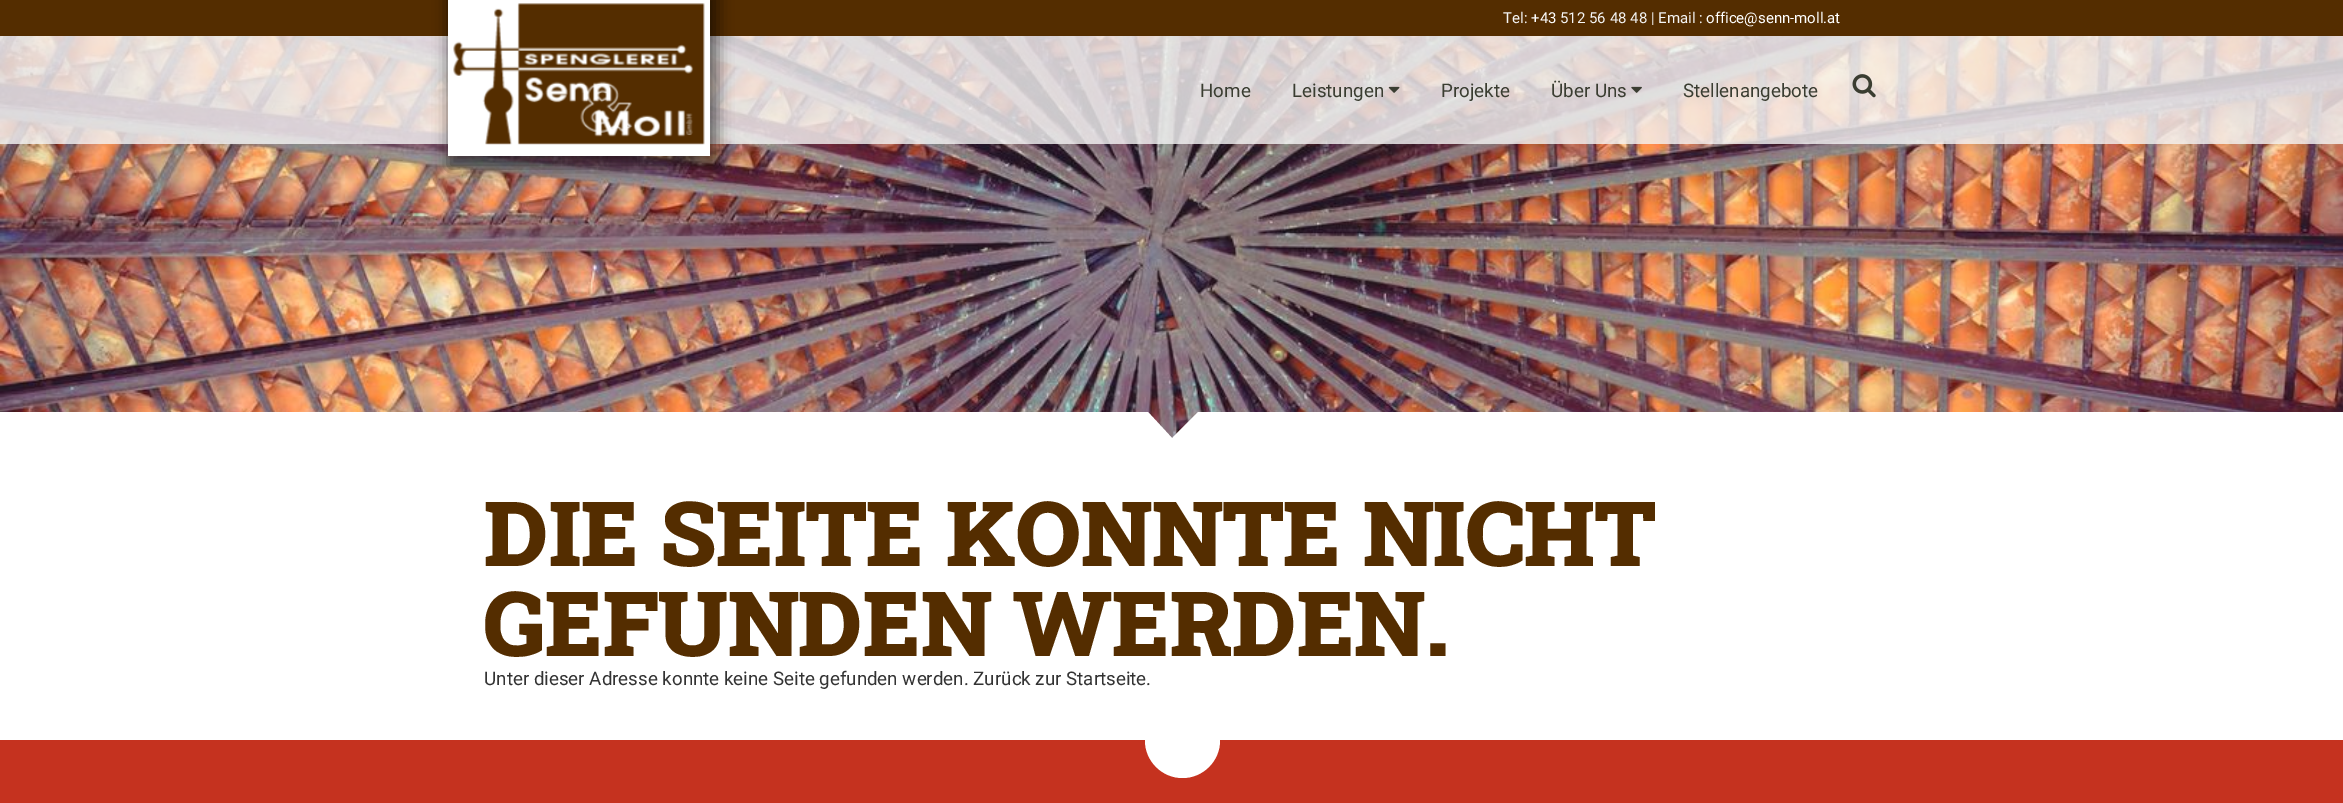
%!PS-Adobe-3.0
%%BoundingBox: 0 0 2343 803
%%LanguageLevel: 3
%%Pages: 1
%%EndComments
%%BeginProlog
/setink { 3 { 255 div 3 1 roll } repeat setrgbcolor } def
/usefont { [ exch dup neg 0 0 3 -1 roll 0 0 ] selectfont } def
/drawtext { setink usefont moveto show } def
/fillbox { setink rectfill } def
/setalpha { dup .setfillconstantalpha .setstrokeconstantalpha } def
/rrect { 5 dict begin { /r /h /w /y /x } { exch def } forall
  x r add y moveto x w add y 2 copy h add r arct x w add y h add x 1 index r arct
  x y h add x y r arct x y 2 copy exch w add exch r arct closepath end } def
/softshadow { 12 dict begin { /a /b /q /h /w /y /x } { exch def } forall gsave /was 0 def
  9 -2 -9 { dup b mul 4 div /e exch def 1 sub .425 mul 2.718 exch exp 1 add a .99 .min exch div /now exch def
    1 1 now sub 1 was sub div sub setalpha /was now def
    w h .min e 2 mul add 0 gt { x e sub y e sub w e 2 mul add h e 2 mul add
      q e add b .6 mul add w h .min 2 div e add .min 0 .max rrect fill } if } for grestore end } def
/drawimage { 5 dict begin { /h /w /y /x /name } { exch def } forall
  gsave x y translate w h scale
  w h 8 [w 0 0 h 0 0] name (r) file false 3 colorimage grestore end } def
%%EndProlog
%%BeginSetup
<< /PageSize [2343 803] /PageUsesTransparency true >> setpagedevice
%%EndSetup
%%Page: 1 1
0 .pushpdf14devicefilter
0 803 translate 1 -1 scale
4 setmiterlimit
0 0 2343 803 255 255 255 fillbox
(assets/img5.rgb) 0 36 2343 402 drawimage
0.8 setalpha
0 36 2343 108 245 245 245 fillbox
1 setalpha
0 0 2343 36 84 45 0 fillbox
(Tel:) 1503 23 /Roboto-Regular 15 245 245 245 drawtext
(+43) 1531 23 /Roboto-Regular 15 255 255 255 drawtext
(512 56 48 48 | Email :) 1560 23 /Roboto-Regular 15 245 245 245 drawtext
(office@senn-moll.at) 1706 23 /Roboto-Regular 15 255 255 255 drawtext
0 0 0 setink
448 -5 270 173 0 7.5 0.54 softshadow
448 0 262 156 255 255 255 fillbox
(assets/img1.rgb) 453 3 252 142 drawimage
(Home) 1200 97 /Roboto-Regular 18.75 58 61 49 drawtext
(Leistungen) 1292 97 /Roboto-Regular 18.75 58 61 49 drawtext
(assets/img2.rgb) 1388 86 12 7 drawimage
(Projekte) 1441 97 /Roboto-Regular 18.75 58 61 49 drawtext
(Über Uns) 1551 97 /Roboto-Regular 18.75 58 61 49 drawtext
(assets/img3.rgb) 1631 86 11 7 drawimage
(Stellenangebote) 1683 97 /Roboto-Regular 18.75 58 61 49 drawtext
(assets/img4.rgb) 1852 74 24 24 drawimage
255 255 255 setink
1172 438 moveto 0 438 lineto 0 412 lineto 1148 412 lineto closepath fill
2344 438 moveto 1172 438 lineto 1198 412 lineto 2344 412 lineto closepath fill
(DIE SEITE KONNTE NICHT) 484 566 /RobotoSlab-Black 90 84 45 0 drawtext
(GEFUNDEN WERDEN.) 484 656 /RobotoSlab-Black 90 84 45 0 drawtext
(Unter dieser Adresse konnte keine Seite gefunden werden. Zurück zur Startseite.) 484 685 /Roboto-Regular 18.75 51 51 51 drawtext
0 740 2343 63 197 50 31 fillbox
255 255 255 setink
1145 740 moveto 1220 740 lineto 1220 740.5 lineto 1220 761 1203 778 1182.5 778 curveto 1162 778 1145 761 1145 740.5 curveto closepath fill
.poppdf14devicefilter showpage
%%EOF
